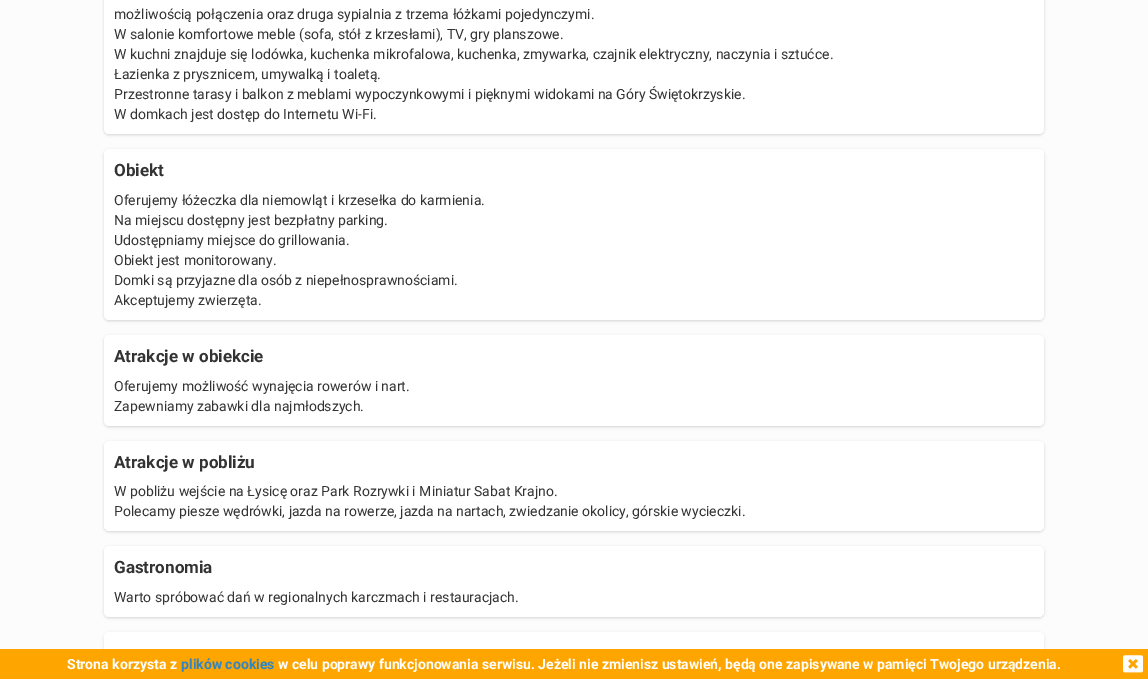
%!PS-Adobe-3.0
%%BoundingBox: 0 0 1148 679
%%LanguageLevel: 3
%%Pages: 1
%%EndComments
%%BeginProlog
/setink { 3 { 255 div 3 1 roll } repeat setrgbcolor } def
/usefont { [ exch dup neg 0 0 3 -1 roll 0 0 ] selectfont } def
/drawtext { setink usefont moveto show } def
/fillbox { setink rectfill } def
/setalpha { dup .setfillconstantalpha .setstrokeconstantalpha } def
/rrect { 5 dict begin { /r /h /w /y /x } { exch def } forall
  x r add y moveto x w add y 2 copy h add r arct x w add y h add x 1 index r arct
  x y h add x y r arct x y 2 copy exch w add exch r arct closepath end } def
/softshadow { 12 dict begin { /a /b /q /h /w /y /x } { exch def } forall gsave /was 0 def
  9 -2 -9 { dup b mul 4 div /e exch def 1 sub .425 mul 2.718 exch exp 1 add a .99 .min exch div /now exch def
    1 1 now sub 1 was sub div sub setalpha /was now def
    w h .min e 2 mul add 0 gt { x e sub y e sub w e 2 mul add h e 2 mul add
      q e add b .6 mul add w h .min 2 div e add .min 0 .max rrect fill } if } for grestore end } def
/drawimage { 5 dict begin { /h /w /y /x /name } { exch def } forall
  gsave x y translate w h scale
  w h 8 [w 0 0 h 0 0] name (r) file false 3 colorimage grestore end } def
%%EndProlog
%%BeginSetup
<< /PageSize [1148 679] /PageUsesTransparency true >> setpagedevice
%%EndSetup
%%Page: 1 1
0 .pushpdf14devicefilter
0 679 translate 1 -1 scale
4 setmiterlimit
0 0 1148 679 252 252 252 fillbox
0 0 0 setink
104 -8 940 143 5 1 0.06 softshadow
104 -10 940 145 5 1.5 0.1 softshadow
255 255 255 setink
104 -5 940 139 5 rrect fill
(możliwością połączenia oraz druga sypialnia z trzema łóżkami pojedynczymi.) 114 19 /Roboto-Regular 14 51 51 51 drawtext
(W salonie komfortowe meble \(sofa, stół z krzesłami\), TV, gry planszowe.) 114 39 /Roboto-Regular 14 51 51 51 drawtext
(W kuchni znajduje się lodówka, kuchenka mikrofalowa, kuchenka, zmywarka, czajnik elektryczny, naczynia i sztućce.) 114 59 /Roboto-Regular 14 51 51 51 drawtext
(Łazienka z prysznicem, umywalką i toaletą.) 114 79 /Roboto-Regular 14 51 51 51 drawtext
(Przestronne tarasy i balkon z meblami wypoczynkowymi i pięknymi widokami na Góry Świętokrzyskie.) 114 99 /Roboto-Regular 14 51 51 51 drawtext
(W domkach jest dostęp do Internetu Wi-Fi.) 114 119 /Roboto-Regular 14 51 51 51 drawtext
0 0 0 setink
104 150 940 171 5 1 0.06 softshadow
104 150 940 171 5 1.5 0.1 softshadow
255 255 255 setink
104 149 940 171 5 rrect fill
(Obiekt) 114 176 /Roboto-Bold 17 51 51 51 drawtext
(Oferujemy łóżeczka dla niemowląt i krzesełka do karmienia.) 114 205 /Roboto-Regular 14 51 51 51 drawtext
(Na miejscu dostępny jest bezpłatny parking.) 114 225 /Roboto-Regular 14 51 51 51 drawtext
(Udostępniamy miejsce do grillowania.) 114 245 /Roboto-Regular 14 51 51 51 drawtext
(Obiekt jest monitorowany.) 114 265 /Roboto-Regular 14 51 51 51 drawtext
(Domki są przyjazne dla osób z niepełnosprawnościami.) 114 285 /Roboto-Regular 14 51 51 51 drawtext
(Akceptujemy zwierzęta.) 114 305 /Roboto-Regular 14 51 51 51 drawtext
0 0 0 setink
104 336 940 91 5 1 0.06 softshadow
104 336 940 91 5 1.5 0.1 softshadow
255 255 255 setink
104 335 940 91 5 rrect fill
(Atrakcje w obiekcie) 114 362 /Roboto-Bold 17 51 51 51 drawtext
(Oferujemy możliwość wynajęcia rowerów i nart.) 114 391 /Roboto-Regular 14 51 51 51 drawtext
(Zapewniamy zabawki dla najmłodszych.) 114 411 /Roboto-Regular 14 51 51 51 drawtext
0 0 0 setink
104 442 940 90 5 1 0.06 softshadow
104 442 940 90 5 1.5 0.1 softshadow
255 255 255 setink
104 441 940 90 5 rrect fill
(Atrakcje w pobliżu) 114 468 /Roboto-Bold 17 51 51 51 drawtext
(W pobliżu wejście na Łysicę oraz Park Rozrywki i Miniatur Sabat Krajno.) 114 496 /Roboto-Regular 14 51 51 51 drawtext
(Polecamy piesze wędrówki, jazda na rowerze, jazda na nartach, zwiedzanie okolicy, górskie wycieczki.) 114 516 /Roboto-Regular 14 51 51 51 drawtext
0 0 0 setink
104 547 940 71 5 1 0.06 softshadow
104 547 940 71 5 1.5 0.1 softshadow
255 255 255 setink
104 546 940 71 5 rrect fill
(Gastronomia) 114 573 /Roboto-Bold 17 51 51 51 drawtext
(Warto spróbować dań w regionalnych karczmach i restauracjach.) 114 602 /Roboto-Regular 14 51 51 51 drawtext
0 0 0 setink
104 633 940 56 5 1.5 0.1 softshadow
255 255 255 setink
104 632 940 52 5 rrect fill
0 649 1148 30 255 165 0 fillbox
(Strona korzysta z) 67 669 /Roboto-Bold 14 255 255 255 drawtext
(plików cookies) 181 669 /Roboto-Bold 14 45 133 197 drawtext
(w celu poprawy funkcjonowania serwisu. Jeżeli nie zmienisz ustawień, będą one zapisywane w pamięci Twojego urządzenia.) 278 669 /Roboto-Bold 14 255 255 255 drawtext
(assets/img1.rgb) 1123 655 20 18 drawimage
.poppdf14devicefilter showpage
%%EOF
